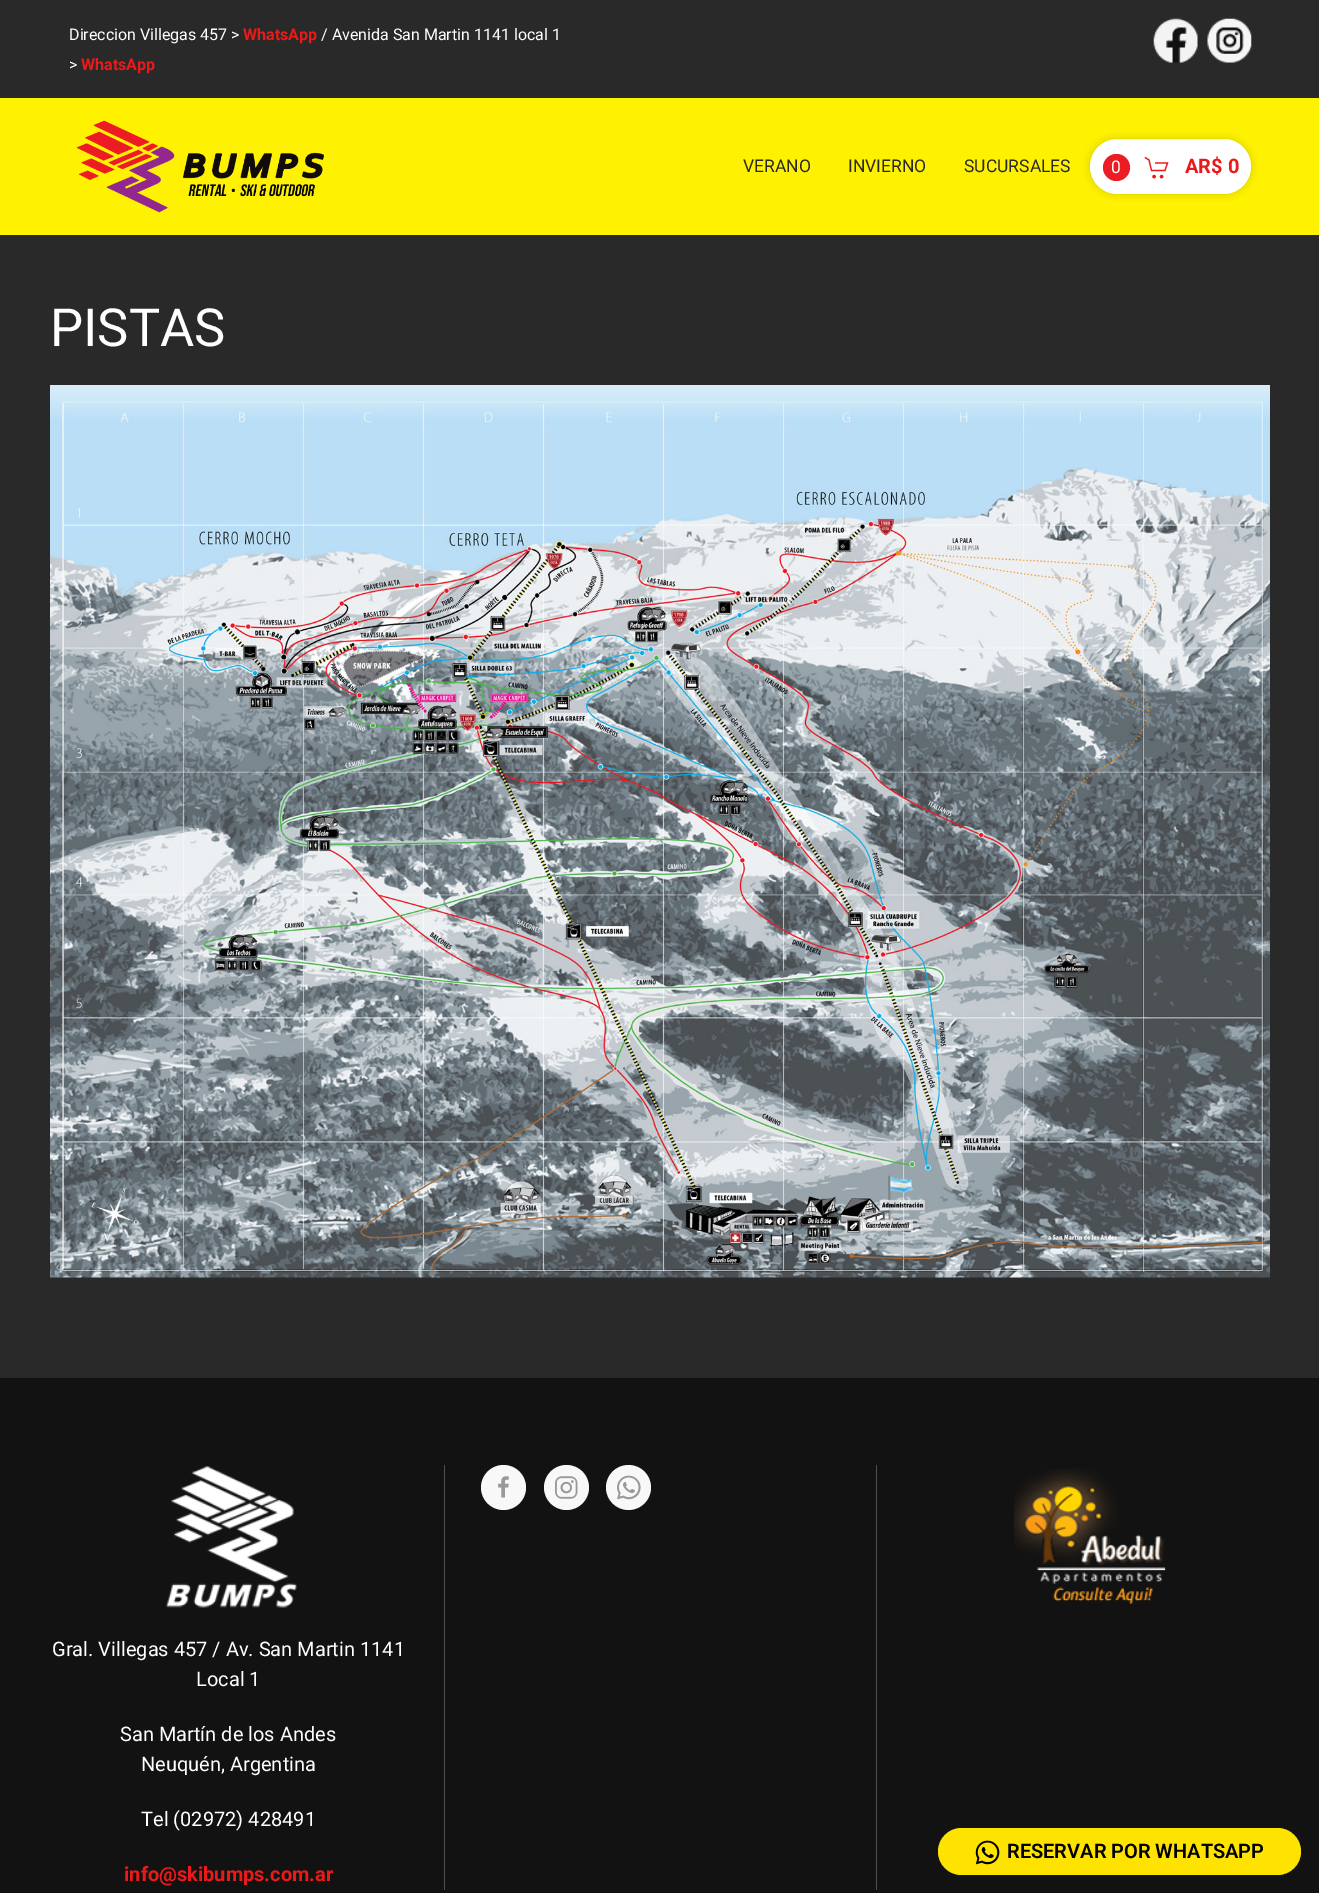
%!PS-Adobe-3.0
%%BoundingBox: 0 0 1319 1893
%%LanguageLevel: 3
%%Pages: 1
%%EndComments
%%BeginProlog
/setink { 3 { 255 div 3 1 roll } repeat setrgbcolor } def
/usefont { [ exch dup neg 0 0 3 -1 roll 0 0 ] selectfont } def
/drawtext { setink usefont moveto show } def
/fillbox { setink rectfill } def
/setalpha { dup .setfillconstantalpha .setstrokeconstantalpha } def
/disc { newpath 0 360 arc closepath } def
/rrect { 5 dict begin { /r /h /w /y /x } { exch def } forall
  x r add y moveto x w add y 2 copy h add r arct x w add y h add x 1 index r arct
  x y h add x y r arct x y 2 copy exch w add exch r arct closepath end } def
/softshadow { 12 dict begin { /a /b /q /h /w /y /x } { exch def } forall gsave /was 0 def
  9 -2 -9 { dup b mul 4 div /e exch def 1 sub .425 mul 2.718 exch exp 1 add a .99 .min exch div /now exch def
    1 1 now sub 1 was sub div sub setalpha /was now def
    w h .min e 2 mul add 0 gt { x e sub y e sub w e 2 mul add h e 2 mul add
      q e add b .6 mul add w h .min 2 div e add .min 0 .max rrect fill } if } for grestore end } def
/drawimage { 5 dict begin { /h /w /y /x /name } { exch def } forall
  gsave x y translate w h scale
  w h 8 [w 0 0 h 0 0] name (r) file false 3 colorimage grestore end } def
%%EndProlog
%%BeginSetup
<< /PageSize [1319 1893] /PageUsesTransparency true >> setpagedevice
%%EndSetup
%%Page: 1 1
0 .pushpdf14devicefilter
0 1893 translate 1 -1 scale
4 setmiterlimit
0 0 1319 1893 41 41 41 fillbox
(Direccion Villegas 457 >) 69 40 /Roboto-Regular 16 255 255 255 drawtext
(WhatsApp) 243 40 /Roboto-Bold 16 235 26 26 drawtext
(/ Avenida San Martin 1141 local 1) 321 40 /Roboto-Regular 16 255 255 255 drawtext
(>) 69 70 /Roboto-Regular 16 255 255 255 drawtext
(WhatsApp) 81 70 /Roboto-Bold 16 235 26 26 drawtext
(assets/img1.rgb) 1153 18 45 45 drawimage
(assets/img2.rgb) 1207 18 45 45 drawimage
0 98 1319 137 255 242 0 fillbox
(assets/img3.rgb) 76 120 248 93 drawimage
(VERANO) 743 172 /Roboto-Regular 17.5 41 41 41 drawtext
(INVIERNO) 848 172 /Roboto-Regular 17.5 41 41 41 drawtext
(SUCURSALES) 964 172 /Roboto-Regular 17.5 41 41 41 drawtext
0 0 0 setink
1096 145 149 43 21.5 6 0.5 softshadow
255 255 255 setink
1090 139 161 55 27.5 rrect fill
237 28 36 setink
1116.5 167.5 13.5 disc fill
(0) 1111 173 /Roboto-Regular 17.5 255 255 255 drawtext
235 26 26 setink
1.2 setlinewidth
1145 157.5 moveto 1149 160 lineto 1151.5 170.5 lineto 1165 170.5 lineto 1167.5 163 lineto 1155 163 lineto stroke
1154.1 176.6 1.7 disc fill
1161.6 176.6 1.7 disc fill
(AR$ 0) 1185 173 /Roboto-Bold 20 235 26 26 drawtext
(PISTAS) 50 346 /Roboto-Regular 52.5 255 255 255 drawtext
(assets/img4.rgb) 50 385 1220 893 drawimage
0 1378 1319 515 18 18 18 fillbox
(assets/img5.rgb) 166 1466 131 142 drawimage
(Gral. Villegas 457 / Av. San Martin 1141) 52 1656 /Roboto-Regular 20 255 255 255 drawtext
(Local 1) 196 1686 /Roboto-Regular 20 255 255 255 drawtext
(San Martín de los Andes) 120 1741 /Roboto-Regular 20 255 255 255 drawtext
(Neuquén, Argentina) 141 1771 /Roboto-Regular 20 255 255 255 drawtext
(Tel \(02972\) 428491) 141 1826 /Roboto-Regular 20 255 255 255 drawtext
(info@skibumps.com.ar) 124 1881 /Roboto-Bold 20 235 26 26 drawtext
444 1465 1 425 80 80 80 fillbox
248 248 248 setink
503.5 1487.5 22.5 disc fill
(assets/img6.rgb) 498 1476 11 22 drawimage
566.5 1487.5 22.5 disc fill
(assets/img7.rgb) 555 1476 23 23 drawimage
628.5 1487.5 22.5 disc fill
(assets/img8.rgb) 617 1475 24 25 drawimage
876 1465 1 425 80 80 80 fillbox
(assets/img9.rgb) 1014 1468 152 136 drawimage
255 227 0 setink
938 1828 363 47 23.5 rrect fill
(assets/img10.rgb) 975 1840 25 25 drawimage
(RESERVAR POR WHATSAPP) 1007 1858 /Roboto-SemiBold 20 0 0 0 drawtext
.poppdf14devicefilter showpage
%%EOF
